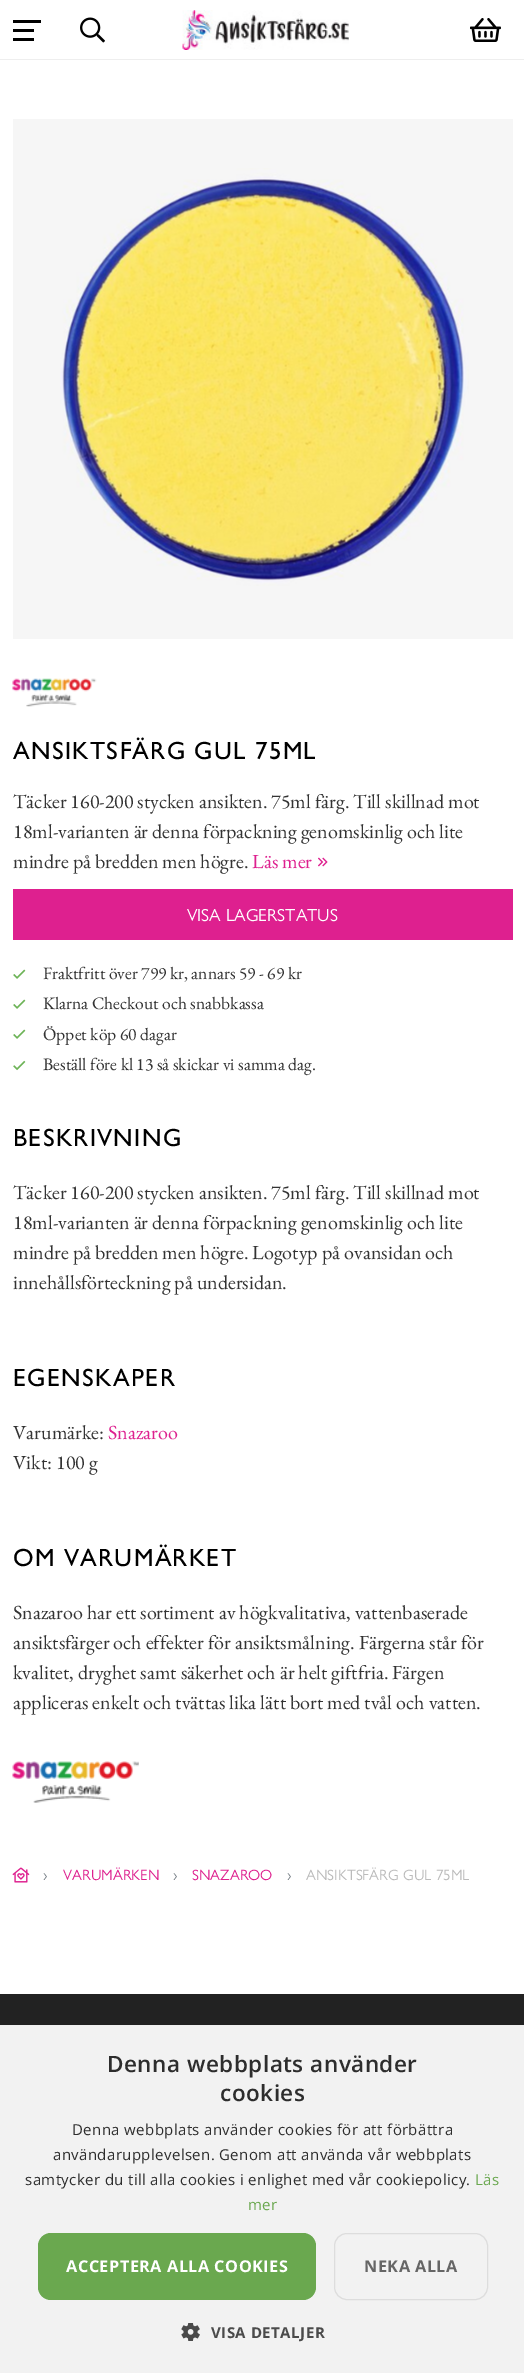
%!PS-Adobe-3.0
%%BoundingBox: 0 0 524 2373
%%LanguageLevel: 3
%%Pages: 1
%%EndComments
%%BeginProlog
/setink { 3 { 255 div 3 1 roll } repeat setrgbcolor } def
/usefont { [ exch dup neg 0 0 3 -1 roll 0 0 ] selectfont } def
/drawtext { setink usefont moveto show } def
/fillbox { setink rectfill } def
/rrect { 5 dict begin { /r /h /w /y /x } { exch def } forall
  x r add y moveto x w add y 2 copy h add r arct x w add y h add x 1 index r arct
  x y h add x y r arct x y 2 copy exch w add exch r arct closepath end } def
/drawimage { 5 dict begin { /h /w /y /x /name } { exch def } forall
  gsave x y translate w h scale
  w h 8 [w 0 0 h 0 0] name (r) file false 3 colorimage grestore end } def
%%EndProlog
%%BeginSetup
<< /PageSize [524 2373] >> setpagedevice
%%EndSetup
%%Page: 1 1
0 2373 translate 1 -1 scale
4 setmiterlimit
0 0 524 2373 255 255 255 fillbox
0 59 524 1 238 238 238 fillbox
13 29 21 3 0 0 0 fillbox
13 20 28 3 0 0 0 fillbox
13 38 21 3 0 0 0 fillbox
(assets/img1.rgb) 80 17 25 26 drawimage
(assets/img2.rgb) 182 10 167 40 drawimage
(assets/img3.rgb) 470 18 31 24 drawimage
13 119 500 520 246 246 246 fillbox
(assets/img4.rgb) 60 168 409 418 drawimage
(assets/img5.rgb) 12 678 85 29 drawimage
/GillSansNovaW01-Medium 25 usefont
0 0 0 setink
13 759 moveto 1.25 0 (ANSIKTSFÄRG GUL 75ML) ashow
(Täcker 160-200 stycken ansikten. 75ml färg. Till skillnad mot) 13 808 /EBGaramond-Regular 20 51 51 51 drawtext
(18ml-varianten är denna förpackning genomskinlig och lite) 13 838 /EBGaramond-Regular 20 51 51 51 drawtext
(mindre på bredden men högre.) 13 868 /EBGaramond-Regular 20 51 51 51 drawtext
(Läs mer) 252 868 /EBGaramond-Regular 20 222 32 143 drawtext
(assets/img6.rgb) 318 857 10 10 drawimage
13 889 500 51 222 32 143 fillbox
(VISA LAGERSTATUS) 187 921 /GillSansNovaW01-Regular 17.5 255 255 255 drawtext
(assets/img7.rgb) 13 969 13 10 drawimage
(Fraktfritt över 799 kr, annars 59 - 69 kr) 43 979 /EBGaramond-Regular 17.5 51 51 51 drawtext
(assets/img7.rgb) 13 999 13 10 drawimage
(Klarna Checkout och snabbkassa) 43 1009 /EBGaramond-Regular 17.5 51 51 51 drawtext
(assets/img7.rgb) 13 1029 13 10 drawimage
(Öppet köp 60 dagar) 43 1040 /EBGaramond-Regular 17.5 51 51 51 drawtext
(assets/img8.rgb) 13 1060 13 11 drawimage
(Beställ före kl 13 så skickar vi samma dag.) 43 1070 /EBGaramond-Regular 17.5 51 51 51 drawtext
/GillSansNovaW01-Medium 25 usefont
0 0 0 setink
13 1146 moveto 1.25 0 (BESKRIVNING) ashow
(Täcker 160-200 stycken ansikten. 75ml färg. Till skillnad mot) 13 1199 /EBGaramond-Regular 20 51 51 51 drawtext
(18ml-varianten är denna förpackning genomskinlig och lite) 13 1229 /EBGaramond-Regular 20 51 51 51 drawtext
(mindre på bredden men högre. Logotyp på ovansidan och) 13 1259 /EBGaramond-Regular 20 51 51 51 drawtext
(innehållsförteckning på undersidan.) 13 1289 /EBGaramond-Regular 20 51 51 51 drawtext
/GillSansNovaW01-Medium 25 usefont
0 0 0 setink
13 1386 moveto 1.25 0 (EGENSKAPER) ashow
(Varumärke:) 13 1439 /EBGaramond-Regular 20 51 51 51 drawtext
(Snazaroo) 108 1439 /EBGaramond-Regular 20 222 32 143 drawtext
(Vikt: 100 g) 13 1469 /EBGaramond-Regular 20 51 51 51 drawtext
/GillSansNovaW01-Medium 25 usefont
0 0 0 setink
13 1566 moveto 1.25 0 (OM VARUMÄRKET) ashow
(Snazaroo har ett sortiment av högkvalitativa, vattenbaserade) 13 1619 /EBGaramond-Regular 20 51 51 51 drawtext
(ansiktsfärger och effekter för ansiktsmålning. Färgerna står för) 13 1649 /EBGaramond-Regular 20 51 51 51 drawtext
(kvalitet, dryghet samt säkerhet och är helt giftfria. Färgen) 13 1679 /EBGaramond-Regular 20 51 51 51 drawtext
(appliceras enkelt och tvättas lika lätt bort med tvål och vatten.) 13 1709 /EBGaramond-Regular 20 51 51 51 drawtext
(assets/img9.rgb) 12 1761 127 42 drawimage
(assets/img10.rgb) 12 1867 18 16 drawimage
(›) 43 1880 /GillSansNovaW01-Regular 15 108 117 125 drawtext
(VARUMÄRKEN) 63 1880 /GillSansNovaW01-Regular 15 222 32 143 drawtext
(›) 173 1880 /GillSansNovaW01-Regular 15 108 117 125 drawtext
(SNAZAROO) 192 1880 /GillSansNovaW01-Regular 15 222 32 143 drawtext
(›) 287 1880 /GillSansNovaW01-Regular 15 108 117 125 drawtext
(ANSIKTSFÄRG GUL 75ML) 306 1880 /GillSansNovaW01-Regular 15 187 187 187 drawtext
0 1994 524 31 34 34 34 fillbox
0 2026 524 347 242 242 242 fillbox
0 2025 524 1 240 240 240 fillbox
/OpenSans-SemiBold 22.5 usefont
45 45 45 setink
107 2072 moveto 0.5 0 (Denna webbplats använder) ashow
220 2101 moveto 0.5 0 (cookies) ashow
/OpenSans-Regular 15 usefont
72 2135 moveto 0.38 0 (Denna webbplats använder cookies för att förbättra) ashow
53 2160 moveto 0.38 0 (användarupplevelsen. Genom att använda vår webbplats) ashow
25 2185 moveto 0.38 0 (samtycker du till alla cookies i enlighet med vår cookiepolicy.) ashow
106 168 79 setink
475 2185 moveto 0.38 0 (Läs) ashow
248 2210 moveto 0.38 0 (mer) ashow
38 2233 278 67 13 rrect fill
/OpenSans-Bold 16.25 usefont
255 255 255 setink
66 2272 moveto 0.5 0 (ACCEPTERA ALLA COOKIES) ashow
221 221 221 setink
334.5 2233.5 153 66 12.5 rrect stroke
102 102 102 setink
364 2272 moveto 0.5 0 (NEKA ALLA) ashow
(assets/img11.rgb) 181 2323 19 18 drawimage
/OpenSans-Bold 15 usefont
75 75 75 setink
211 2338 moveto 0.5 0 (VISA DETALJER) ashow
showpage
%%EOF
